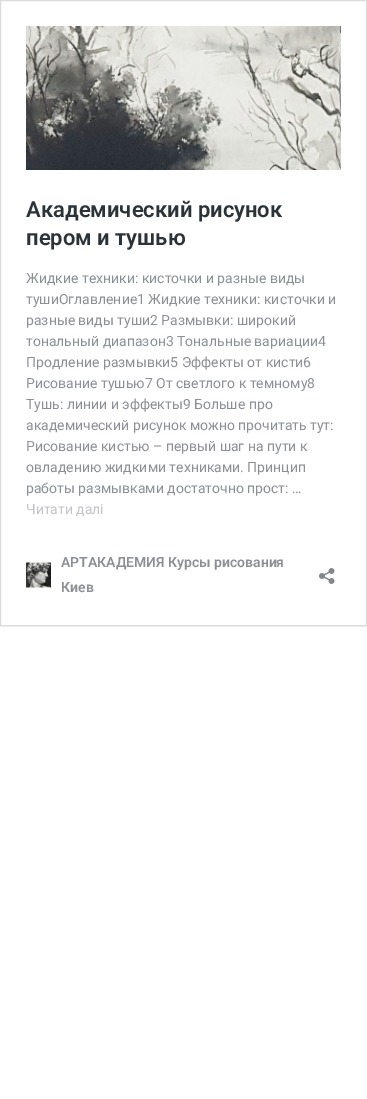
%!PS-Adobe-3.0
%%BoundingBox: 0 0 367 1099
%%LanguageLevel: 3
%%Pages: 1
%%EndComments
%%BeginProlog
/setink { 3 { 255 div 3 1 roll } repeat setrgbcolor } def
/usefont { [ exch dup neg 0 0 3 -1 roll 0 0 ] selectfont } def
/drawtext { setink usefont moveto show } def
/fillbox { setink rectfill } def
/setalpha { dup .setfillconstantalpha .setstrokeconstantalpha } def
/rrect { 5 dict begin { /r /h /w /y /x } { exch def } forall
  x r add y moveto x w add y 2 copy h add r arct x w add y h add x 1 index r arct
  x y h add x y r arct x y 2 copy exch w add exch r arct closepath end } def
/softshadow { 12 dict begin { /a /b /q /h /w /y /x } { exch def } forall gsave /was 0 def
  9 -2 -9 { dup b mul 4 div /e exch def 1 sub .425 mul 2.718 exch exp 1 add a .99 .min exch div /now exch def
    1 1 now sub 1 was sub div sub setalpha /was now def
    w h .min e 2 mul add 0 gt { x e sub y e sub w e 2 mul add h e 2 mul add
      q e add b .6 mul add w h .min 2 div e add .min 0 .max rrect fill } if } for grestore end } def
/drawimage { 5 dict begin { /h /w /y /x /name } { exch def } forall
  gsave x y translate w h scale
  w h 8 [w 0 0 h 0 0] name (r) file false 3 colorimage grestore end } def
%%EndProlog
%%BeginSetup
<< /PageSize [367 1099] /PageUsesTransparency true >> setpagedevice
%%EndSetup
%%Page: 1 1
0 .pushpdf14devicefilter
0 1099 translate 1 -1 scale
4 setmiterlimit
0 0 367 1099 255 255 255 fillbox
gsave
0 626 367 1 rectclip
0 0 0 setink
0 1 367 626 0 0.5 0.05 softshadow
grestore
220 220 222 setink
0.5 0.5 366 625 rectstroke
(assets/img1.rgb) 26 26 315 144 drawimage
(Академический рисунок) 26 217 /Roboto-SemiBold 22 44 51 56 drawtext
(пером и тушью) 26 245 /Roboto-SemiBold 22 44 51 56 drawtext
(Жидкие техники: кисточки и разные виды) 26 283 /Roboto-Regular 14 140 143 148 drawtext
(тушиОглавление1 Жидкие техники: кисточки и) 26 304 /Roboto-Regular 14 140 143 148 drawtext
(разные виды туши2 Размывки: широкий) 26 325 /Roboto-Regular 14 140 143 148 drawtext
(тональный диапазон3 Тональные вариации4) 26 346 /Roboto-Regular 14 140 143 148 drawtext
(Продление размывки5 Эффекты от кисти6) 26 367 /Roboto-Regular 14 140 143 148 drawtext
(Рисование тушью7 От светлого к темному8) 26 388 /Roboto-Regular 14 140 143 148 drawtext
(Тушь: линии и эффекты9 Больше про) 26 409 /Roboto-Regular 14 140 143 148 drawtext
(академический рисунок можно прочитать тут:) 26 430 /Roboto-Regular 14 140 143 148 drawtext
(Рисование кистью – первый шаг на пути к) 26 451 /Roboto-Regular 14 140 143 148 drawtext
(овладению жидкими техниками. Принцип) 26 472 /Roboto-Regular 14 140 143 148 drawtext
(работы размывками достаточно прост: …) 26 493 /Roboto-Regular 14 140 143 148 drawtext
(Читати далі) 26 514 /Roboto-Regular 14 195 196 199 drawtext
(assets/img2.rgb) 26 562 25 26 drawimage
(АРТАКАДЕМИЯ Курсы рисования) 61 567 /Roboto-SemiBold 14 140 143 148 drawtext
(Киев) 61 592 /Roboto-SemiBold 14 140 143 148 drawtext
(assets/img3.rgb) 319 568 16 16 drawimage
.poppdf14devicefilter showpage
%%EOF
